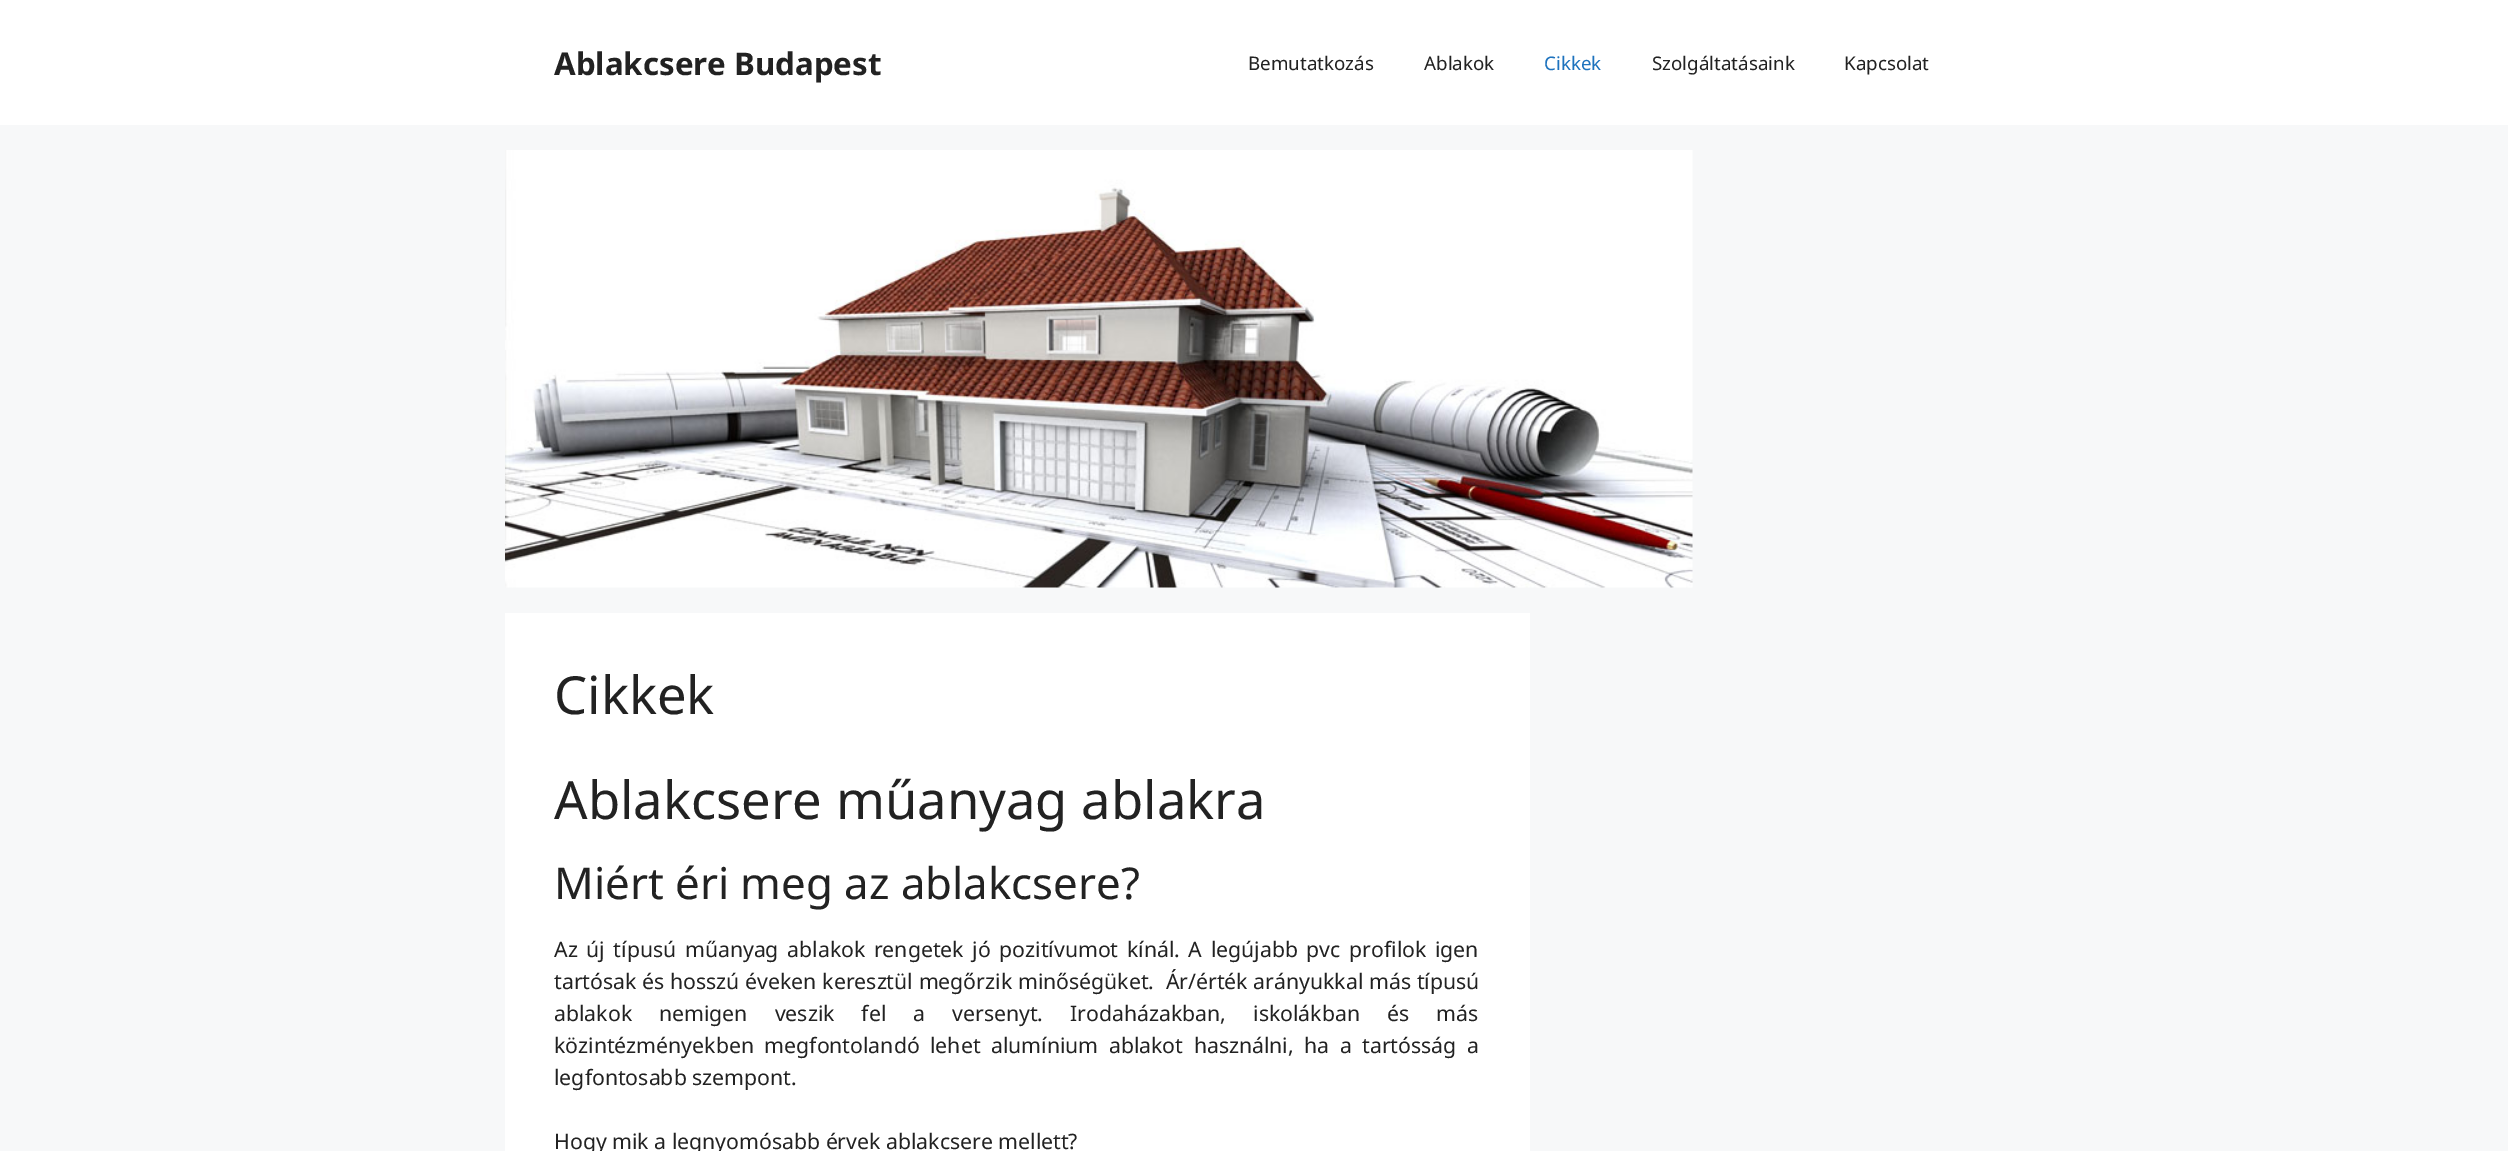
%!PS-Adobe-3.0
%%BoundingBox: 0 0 2508 1151
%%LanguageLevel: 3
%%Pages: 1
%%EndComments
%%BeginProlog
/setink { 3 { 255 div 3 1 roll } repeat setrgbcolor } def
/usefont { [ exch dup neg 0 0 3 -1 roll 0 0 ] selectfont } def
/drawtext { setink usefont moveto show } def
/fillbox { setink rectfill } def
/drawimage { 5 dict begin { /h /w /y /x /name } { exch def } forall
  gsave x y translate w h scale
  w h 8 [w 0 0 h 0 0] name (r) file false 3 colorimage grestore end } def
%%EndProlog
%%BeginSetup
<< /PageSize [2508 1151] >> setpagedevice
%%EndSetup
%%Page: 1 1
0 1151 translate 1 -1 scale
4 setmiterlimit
0 0 2508 1151 247 248 249 fillbox
0 0 2508 125 255 255 255 fillbox
(Ablakcsere Budapest) 554 75 /NotoSans-Bold 31.25 34 34 34 drawtext
(Bemutatkozás) 1248 70 /NotoSans-Regular 18.75 34 34 34 drawtext
(Ablakok) 1424 70 /NotoSans-Regular 18.75 34 34 34 drawtext
(Cikkek) 1544 70 /NotoSans-Regular 18.75 30 115 190 drawtext
(Szolgáltatásaink) 1652 70 /NotoSans-Regular 18.75 34 34 34 drawtext
(Kapcsolat) 1844 70 /NotoSans-Regular 18.75 34 34 34 drawtext
(assets/img1.rgb) 505 150 1188 438 drawimage
505 613 1025 538 255 255 255 fillbox
(Cikkek) 554 714 /NotoSans-Regular 52.5 34 34 34 drawtext
(Ablakcsere műanyag ablakra) 554 819 /NotoSans-Regular 52.5 34 34 34 drawtext
(Miért éri meg az ablakcsere?) 554 899 /NotoSans-Regular 43.75 34 34 34 drawtext
/NotoSans-Regular 21.25 usefont
554 957 moveto 3.1 0 32 (Az új típusú műanyag ablakok rengetek jó pozitívumot kínál. A legújabb pvc profilok igen) widthshow
554 989 moveto 0.25 0 32 (tartósak és hosszú éveken keresztül megőrzik minőségüket.  Ár/érték arányukkal más típusú) widthshow
554 1021 moveto 21.5 0 32 (ablakok nemigen veszik fel a versenyt. Irodaházakban, iskolákban és más) widthshow
554 1053 moveto 5 0 32 (közintézményekben megfontolandó lehet alumínium ablakot használni, ha a tartósság a) widthshow
(legfontosabb szempont.) 554 1085 /NotoSans-Regular 21.25 34 34 34 drawtext
(Hogy mik a legnyomósabb érvek ablakcsere mellett?) 554 1149 /NotoSans-Regular 21.25 34 34 34 drawtext
showpage
%%EOF
